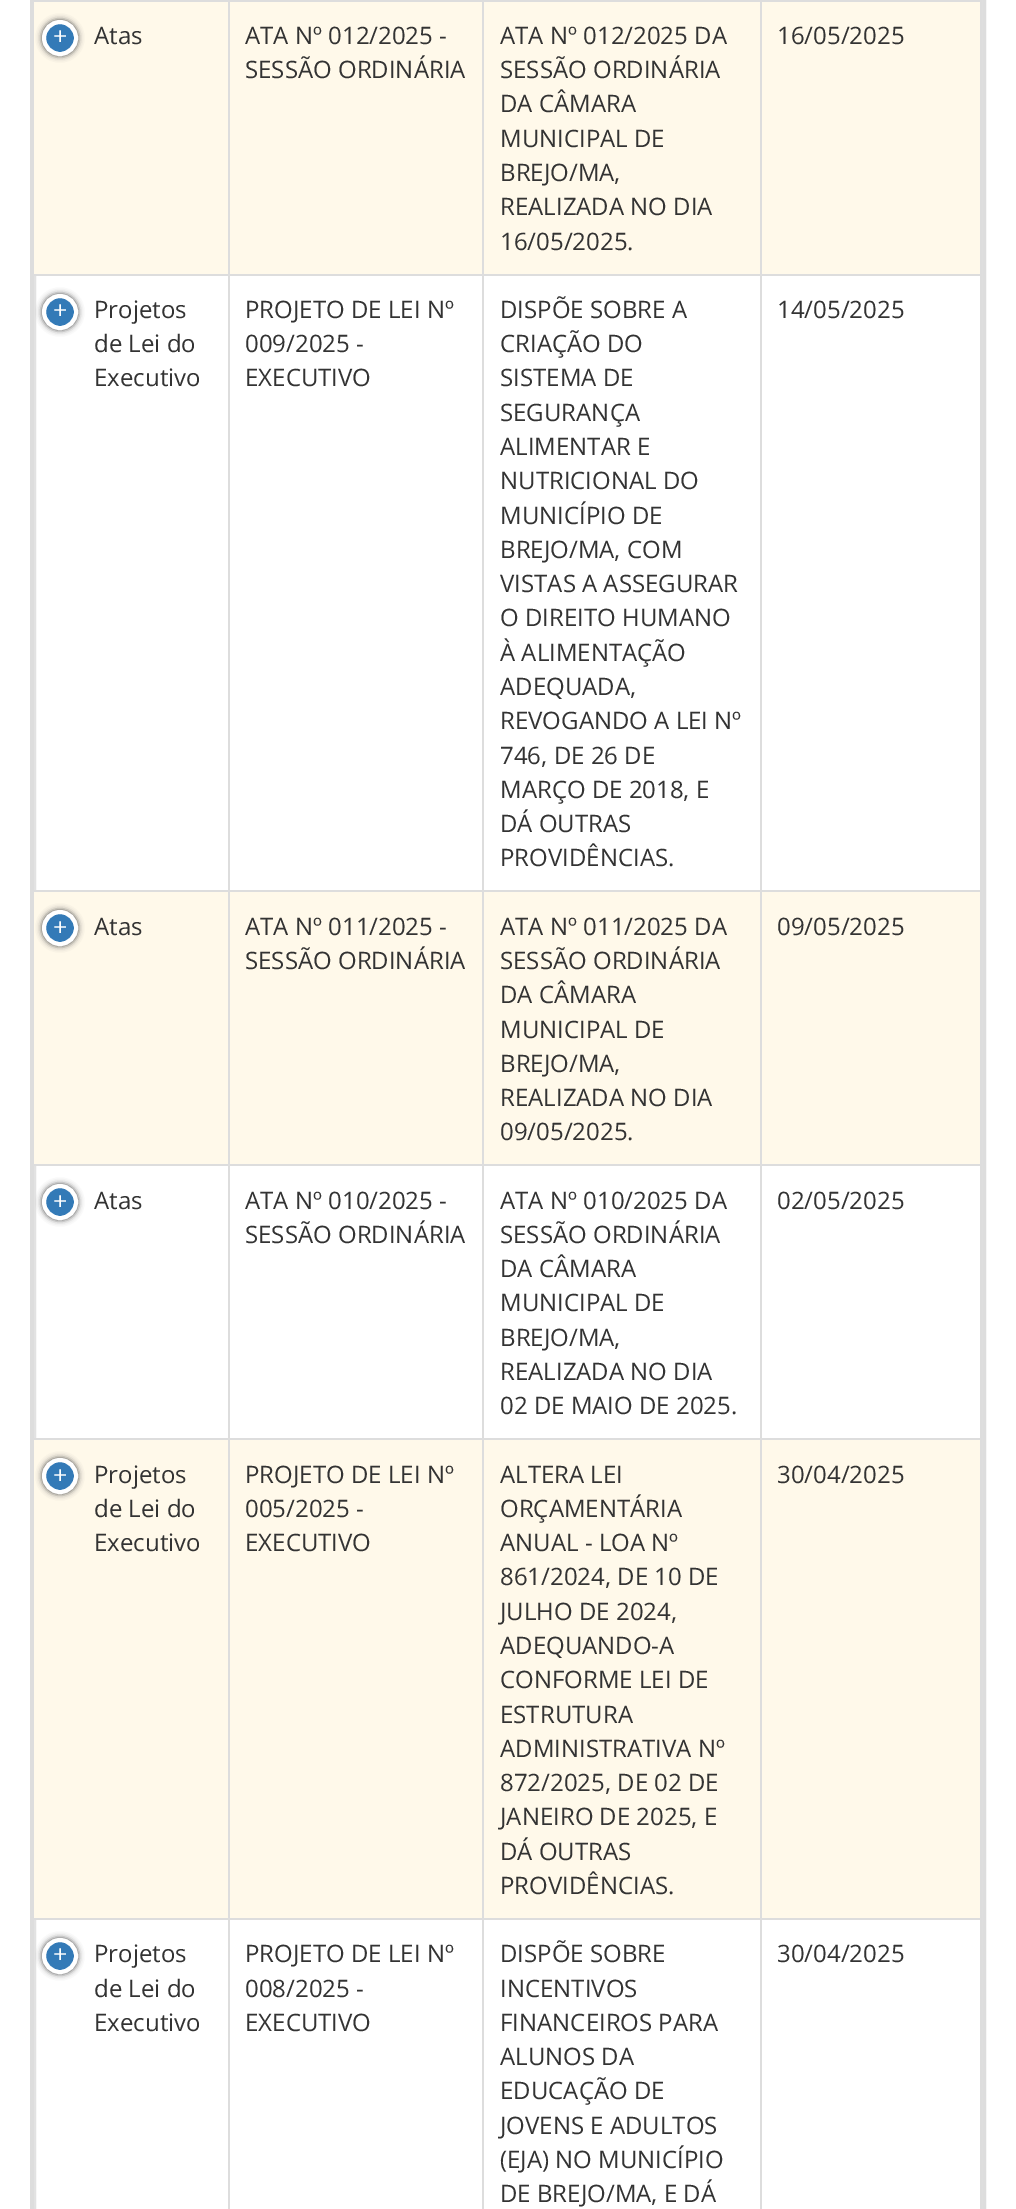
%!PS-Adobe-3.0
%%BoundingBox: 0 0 1016 2209
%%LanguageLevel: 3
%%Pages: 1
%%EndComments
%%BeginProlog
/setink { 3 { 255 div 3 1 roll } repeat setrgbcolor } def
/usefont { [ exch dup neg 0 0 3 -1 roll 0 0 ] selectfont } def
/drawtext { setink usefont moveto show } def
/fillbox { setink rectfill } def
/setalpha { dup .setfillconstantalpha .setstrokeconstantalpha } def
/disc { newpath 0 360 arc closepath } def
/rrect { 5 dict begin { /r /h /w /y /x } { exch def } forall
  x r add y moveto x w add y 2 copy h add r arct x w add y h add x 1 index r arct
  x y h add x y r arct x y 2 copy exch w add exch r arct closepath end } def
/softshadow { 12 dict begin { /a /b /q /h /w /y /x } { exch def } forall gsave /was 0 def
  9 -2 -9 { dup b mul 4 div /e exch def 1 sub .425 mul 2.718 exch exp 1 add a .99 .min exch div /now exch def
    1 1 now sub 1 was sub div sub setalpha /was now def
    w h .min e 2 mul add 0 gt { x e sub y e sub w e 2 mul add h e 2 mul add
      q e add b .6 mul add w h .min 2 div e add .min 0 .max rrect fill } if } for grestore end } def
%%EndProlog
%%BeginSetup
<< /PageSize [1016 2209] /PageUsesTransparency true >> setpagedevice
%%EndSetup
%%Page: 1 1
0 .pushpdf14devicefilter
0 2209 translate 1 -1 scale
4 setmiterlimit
0 0 1016 2209 255 255 255 fillbox
221 221 221 setink
2 setlinewidth
31 -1 954 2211 rectstroke
33 -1 950 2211 rectstroke
226 226 226 setink
35 -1 946 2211 rectstroke
34 2 946 272 255 249 234 fillbox
34 0 948 2 221 221 221 fillbox
34 274 948 2 221 221 221 fillbox
34 892 946 272 255 249 234 fillbox
34 890 948 2 221 221 221 fillbox
34 1164 948 2 221 221 221 fillbox
34 1440 946 478 255 249 234 fillbox
34 1438 948 2 221 221 221 fillbox
34 1918 948 2 221 221 221 fillbox
228 0 2 2209 221 221 221 fillbox
68 68 68 setink
42 20 36 36 18 3 1 softshadow
51 122 183 setink
60 38 16 disc gsave fill grestore
255 255 255 setink
4 setlinewidth
stroke
(+) 53 44 /LiberationMono-Regular 24 255 255 255 drawtext
(Atas) 94 44 /OpenSans-Regular 24 51 51 51 drawtext
482 0 2 274 221 221 221 fillbox
(ATA Nº 012/2025 -) 245 44 /OpenSans-Regular 24 51 51 51 drawtext
(SESSÃO ORDINÁRIA) 245 78 /OpenSans-Regular 24 51 51 51 drawtext
760 0 2 274 221 221 221 fillbox
(ATA Nº 012/2025 DA) 500 44 /OpenSans-Regular 24 51 51 51 drawtext
(SESSÃO ORDINÁRIA) 500 78 /OpenSans-Regular 24 51 51 51 drawtext
(DA CÂMARA) 500 112 /OpenSans-Regular 24 51 51 51 drawtext
(MUNICIPAL DE) 500 147 /OpenSans-Regular 24 51 51 51 drawtext
(BREJO/MA,) 500 181 /OpenSans-Regular 24 51 51 51 drawtext
(REALIZADA NO DIA) 500 215 /OpenSans-Regular 24 51 51 51 drawtext
(16/05/2025.) 500 250 /OpenSans-Regular 24 51 51 51 drawtext
980 0 2 274 221 221 221 fillbox
(16/05/2025) 777 44 /OpenSans-Regular 24 51 51 51 drawtext
68 68 68 setink
42 294 36 36 18 3 1 softshadow
51 122 183 setink
60 312 16 disc gsave fill grestore
255 255 255 setink
stroke
(+) 53 318 /LiberationMono-Regular 24 255 255 255 drawtext
(Projetos) 94 318 /OpenSans-Regular 24 51 51 51 drawtext
(de Lei do) 94 352 /OpenSans-Regular 24 51 51 51 drawtext
(Executivo) 94 386 /OpenSans-Regular 24 51 51 51 drawtext
482 274 2 616 221 221 221 fillbox
(PROJETO DE LEI Nº) 245 318 /OpenSans-Regular 24 51 51 51 drawtext
(009/2025 -) 245 352 /OpenSans-Regular 24 51 51 51 drawtext
(EXECUTIVO) 245 386 /OpenSans-Regular 24 51 51 51 drawtext
760 274 2 616 221 221 221 fillbox
(DISPÕE SOBRE A) 500 318 /OpenSans-Regular 24 51 51 51 drawtext
(CRIAÇÃO DO) 500 352 /OpenSans-Regular 24 51 51 51 drawtext
(SISTEMA DE) 500 386 /OpenSans-Regular 24 51 51 51 drawtext
(SEGURANÇA) 500 421 /OpenSans-Regular 24 51 51 51 drawtext
(ALIMENTAR E) 500 455 /OpenSans-Regular 24 51 51 51 drawtext
(NUTRICIONAL DO) 500 489 /OpenSans-Regular 24 51 51 51 drawtext
(MUNICÍPIO DE) 500 524 /OpenSans-Regular 24 51 51 51 drawtext
(BREJO/MA, COM) 500 558 /OpenSans-Regular 24 51 51 51 drawtext
(VISTAS A ASSEGURAR) 500 592 /OpenSans-Regular 24 51 51 51 drawtext
(O DIREITO HUMANO) 500 626 /OpenSans-Regular 24 51 51 51 drawtext
(À ALIMENTAÇÃO) 500 661 /OpenSans-Regular 24 51 51 51 drawtext
(ADEQUADA,) 500 695 /OpenSans-Regular 24 51 51 51 drawtext
(REVOGANDO A LEI Nº) 500 729 /OpenSans-Regular 24 51 51 51 drawtext
(746, DE 26 DE) 500 764 /OpenSans-Regular 24 51 51 51 drawtext
(MARÇO DE 2018, E) 500 798 /OpenSans-Regular 24 51 51 51 drawtext
(DÁ OUTRAS) 500 832 /OpenSans-Regular 24 51 51 51 drawtext
(PROVIDÊNCIAS.) 500 866 /OpenSans-Regular 24 51 51 51 drawtext
980 274 2 616 221 221 221 fillbox
(14/05/2025) 777 318 /OpenSans-Regular 24 51 51 51 drawtext
68 68 68 setink
42 910 36 36 18 3 1 softshadow
51 122 183 setink
60 928 16 disc gsave fill grestore
255 255 255 setink
stroke
(+) 53 935 /LiberationMono-Regular 24 255 255 255 drawtext
(Atas) 94 935 /OpenSans-Regular 24 51 51 51 drawtext
482 890 2 274 221 221 221 fillbox
(ATA Nº 011/2025 -) 245 935 /OpenSans-Regular 24 51 51 51 drawtext
(SESSÃO ORDINÁRIA) 245 969 /OpenSans-Regular 24 51 51 51 drawtext
760 890 2 274 221 221 221 fillbox
(ATA Nº 011/2025 DA) 500 935 /OpenSans-Regular 24 51 51 51 drawtext
(SESSÃO ORDINÁRIA) 500 969 /OpenSans-Regular 24 51 51 51 drawtext
(DA CÂMARA) 500 1003 /OpenSans-Regular 24 51 51 51 drawtext
(MUNICIPAL DE) 500 1038 /OpenSans-Regular 24 51 51 51 drawtext
(BREJO/MA,) 500 1072 /OpenSans-Regular 24 51 51 51 drawtext
(REALIZADA NO DIA) 500 1106 /OpenSans-Regular 24 51 51 51 drawtext
(09/05/2025.) 500 1140 /OpenSans-Regular 24 51 51 51 drawtext
980 890 2 274 221 221 221 fillbox
(09/05/2025) 777 935 /OpenSans-Regular 24 51 51 51 drawtext
68 68 68 setink
42 1184 36 36 18 3 1 softshadow
51 122 183 setink
60 1202 16 disc gsave fill grestore
255 255 255 setink
stroke
(+) 53 1209 /LiberationMono-Regular 24 255 255 255 drawtext
(Atas) 94 1209 /OpenSans-Regular 24 51 51 51 drawtext
482 1164 2 274 221 221 221 fillbox
(ATA Nº 010/2025 -) 245 1209 /OpenSans-Regular 24 51 51 51 drawtext
(SESSÃO ORDINÁRIA) 245 1243 /OpenSans-Regular 24 51 51 51 drawtext
760 1164 2 274 221 221 221 fillbox
(ATA Nº 010/2025 DA) 500 1209 /OpenSans-Regular 24 51 51 51 drawtext
(SESSÃO ORDINÁRIA) 500 1243 /OpenSans-Regular 24 51 51 51 drawtext
(DA CÂMARA) 500 1277 /OpenSans-Regular 24 51 51 51 drawtext
(MUNICIPAL DE) 500 1311 /OpenSans-Regular 24 51 51 51 drawtext
(BREJO/MA,) 500 1346 /OpenSans-Regular 24 51 51 51 drawtext
(REALIZADA NO DIA) 500 1380 /OpenSans-Regular 24 51 51 51 drawtext
(02 DE MAIO DE 2025.) 500 1414 /OpenSans-Regular 24 51 51 51 drawtext
980 1164 2 274 221 221 221 fillbox
(02/05/2025) 777 1209 /OpenSans-Regular 24 51 51 51 drawtext
68 68 68 setink
42 1458 36 36 18 3 1 softshadow
51 122 183 setink
60 1476 16 disc gsave fill grestore
255 255 255 setink
stroke
(+) 53 1483 /LiberationMono-Regular 24 255 255 255 drawtext
(Projetos) 94 1483 /OpenSans-Regular 24 51 51 51 drawtext
(de Lei do) 94 1517 /OpenSans-Regular 24 51 51 51 drawtext
(Executivo) 94 1551 /OpenSans-Regular 24 51 51 51 drawtext
482 1438 2 480 221 221 221 fillbox
(PROJETO DE LEI Nº) 245 1483 /OpenSans-Regular 24 51 51 51 drawtext
(005/2025 -) 245 1517 /OpenSans-Regular 24 51 51 51 drawtext
(EXECUTIVO) 245 1551 /OpenSans-Regular 24 51 51 51 drawtext
760 1438 2 480 221 221 221 fillbox
(ALTERA LEI) 500 1483 /OpenSans-Regular 24 51 51 51 drawtext
(ORÇAMENTÁRIA) 500 1517 /OpenSans-Regular 24 51 51 51 drawtext
(ANUAL - LOA Nº) 500 1551 /OpenSans-Regular 24 51 51 51 drawtext
(861/2024, DE 10 DE) 500 1585 /OpenSans-Regular 24 51 51 51 drawtext
(JULHO DE 2024,) 500 1620 /OpenSans-Regular 24 51 51 51 drawtext
(ADEQUANDO-A) 500 1654 /OpenSans-Regular 24 51 51 51 drawtext
(CONFORME LEI DE) 500 1688 /OpenSans-Regular 24 51 51 51 drawtext
(ESTRUTURA) 500 1723 /OpenSans-Regular 24 51 51 51 drawtext
(ADMINISTRATIVA Nº) 500 1757 /OpenSans-Regular 24 51 51 51 drawtext
(872/2025, DE 02 DE) 500 1791 /OpenSans-Regular 24 51 51 51 drawtext
(JANEIRO DE 2025, E) 500 1825 /OpenSans-Regular 24 51 51 51 drawtext
(DÁ OUTRAS) 500 1860 /OpenSans-Regular 24 51 51 51 drawtext
(PROVIDÊNCIAS.) 500 1894 /OpenSans-Regular 24 51 51 51 drawtext
980 1438 2 480 221 221 221 fillbox
(30/04/2025) 777 1483 /OpenSans-Regular 24 51 51 51 drawtext
68 68 68 setink
42 1938 36 36 18 3 1 softshadow
51 122 183 setink
60 1956 16 disc gsave fill grestore
255 255 255 setink
stroke
(+) 53 1962 /LiberationMono-Regular 24 255 255 255 drawtext
(Projetos) 94 1962 /OpenSans-Regular 24 51 51 51 drawtext
(de Lei do) 94 1997 /OpenSans-Regular 24 51 51 51 drawtext
(Executivo) 94 2031 /OpenSans-Regular 24 51 51 51 drawtext
482 1918 2 291 221 221 221 fillbox
(PROJETO DE LEI Nº) 245 1962 /OpenSans-Regular 24 51 51 51 drawtext
(008/2025 -) 245 1997 /OpenSans-Regular 24 51 51 51 drawtext
(EXECUTIVO) 245 2031 /OpenSans-Regular 24 51 51 51 drawtext
760 1918 2 291 221 221 221 fillbox
(DISPÕE SOBRE) 500 1962 /OpenSans-Regular 24 51 51 51 drawtext
(INCENTIVOS) 500 1997 /OpenSans-Regular 24 51 51 51 drawtext
(FINANCEIROS PARA) 500 2031 /OpenSans-Regular 24 51 51 51 drawtext
(ALUNOS DA) 500 2065 /OpenSans-Regular 24 51 51 51 drawtext
(EDUCAÇÃO DE) 500 2099 /OpenSans-Regular 24 51 51 51 drawtext
(JOVENS E ADULTOS) 500 2134 /OpenSans-Regular 24 51 51 51 drawtext
(\(EJA\) NO MUNICÍPIO) 500 2168 /OpenSans-Regular 24 51 51 51 drawtext
(DE BREJO/MA, E DÁ) 500 2202 /OpenSans-Regular 24 51 51 51 drawtext
980 1918 2 291 221 221 221 fillbox
(30/04/2025) 777 1962 /OpenSans-Regular 24 51 51 51 drawtext
.poppdf14devicefilter showpage
%%EOF
